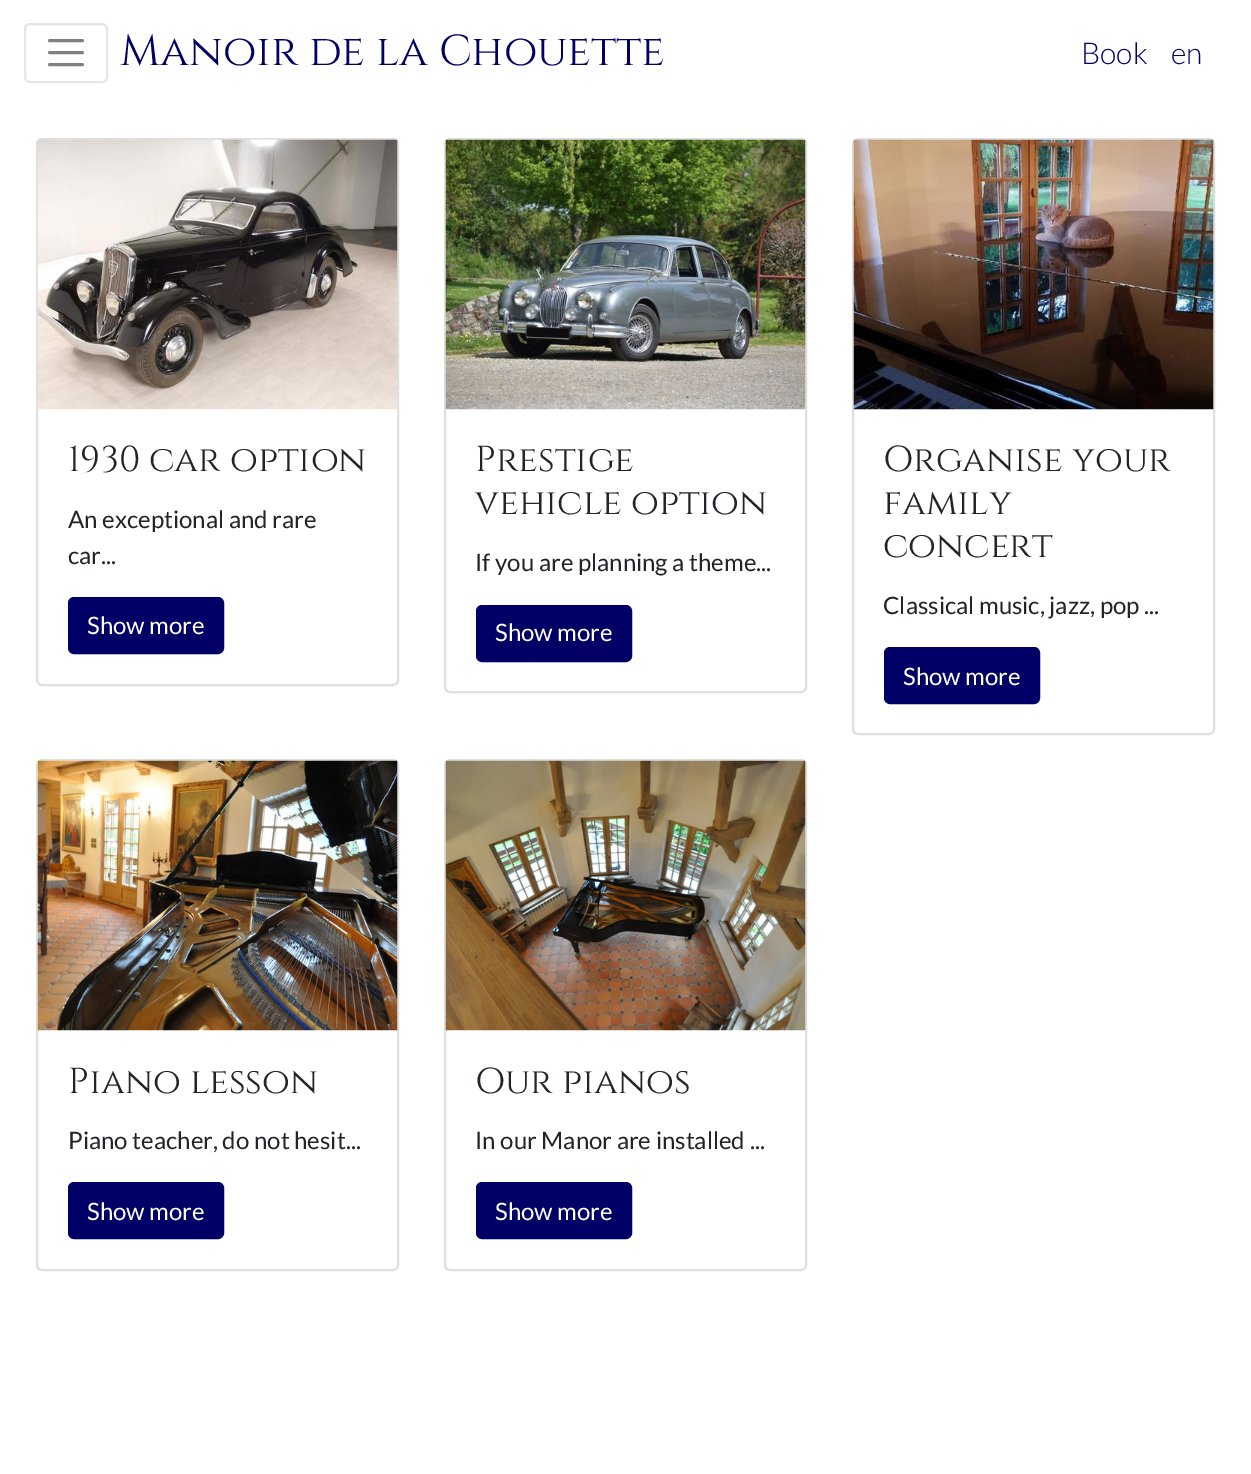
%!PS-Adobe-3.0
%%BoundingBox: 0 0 1251 1474
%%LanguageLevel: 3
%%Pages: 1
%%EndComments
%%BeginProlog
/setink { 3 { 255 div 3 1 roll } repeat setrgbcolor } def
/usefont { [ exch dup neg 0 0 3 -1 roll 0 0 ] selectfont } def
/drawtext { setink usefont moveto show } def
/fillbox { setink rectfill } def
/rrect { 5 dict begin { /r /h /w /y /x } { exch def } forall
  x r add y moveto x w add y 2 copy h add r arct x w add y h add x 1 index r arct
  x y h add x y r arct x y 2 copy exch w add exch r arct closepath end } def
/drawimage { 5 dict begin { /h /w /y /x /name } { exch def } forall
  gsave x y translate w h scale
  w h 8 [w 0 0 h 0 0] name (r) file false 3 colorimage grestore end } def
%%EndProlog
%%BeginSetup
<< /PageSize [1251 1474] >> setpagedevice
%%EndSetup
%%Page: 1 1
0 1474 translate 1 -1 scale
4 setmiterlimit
0 0 1251 1474 255 255 255 fillbox
230 230 230 setink
2 setlinewidth
25 24 82 58 5 rrect stroke
128 128 128 setink
3 setlinewidth
1 setlinecap
49.5 40.5 moveto 82.5 40.5 lineto 49.5 52.5 moveto 82.5 52.5 lineto 49.5 64.5 moveto 82.5 64.5 lineto stroke
(Manoir de la Chouette) 120 65 /Cinzel-Regular 43.25 0 0 102 drawtext
(Book) 1081 64 /Lato-Light 30 0 0 102 drawtext
(en) 1171 64 /Lato-Light 30 0 0 102 drawtext
223 223 223 setink
2 setlinewidth
0 setlinecap
37 139 361 546 5 rrect stroke
(assets/img1.rgb) 37 139 361 271 drawimage
(1930 car option) 68 471 /Cinzel-Regular 36 33 37 41 drawtext
(An exceptional and rare) 68 528 /Lato-Regular 24 33 37 41 drawtext
(car...) 68 564 /Lato-Regular 24 33 37 41 drawtext
0 0 103 setink
69 598 154 55 5 rrect gsave fill grestore
stroke
(Show more) 87 634 /Lato-Regular 24 255 255 255 drawtext
223 223 223 setink
445 139 361 553 5 rrect stroke
(assets/img2.rgb) 445 139 361 271 drawimage
(Prestige) 475 471 /Cinzel-Regular 36 33 37 41 drawtext
(vehicle option) 475 514 /Cinzel-Regular 36 33 37 41 drawtext
(If you are planning a theme...) 475 571 /Lato-Regular 24 33 37 41 drawtext
0 0 103 setink
477 606 154 55 5 rrect gsave fill grestore
stroke
(Show more) 495 641 /Lato-Regular 24 255 255 255 drawtext
223 223 223 setink
853 139 361 595 5 rrect stroke
(assets/img3.rgb) 853 139 361 271 drawimage
(Organise your) 883 471 /Cinzel-Regular 36 33 37 41 drawtext
(family) 883 514 /Cinzel-Regular 36 33 37 41 drawtext
(concert) 883 557 /Cinzel-Regular 36 33 37 41 drawtext
(Classical music, jazz, pop ...) 883 614 /Lato-Regular 24 33 37 41 drawtext
0 0 103 setink
885 648 154 55 5 rrect gsave fill grestore
stroke
(Show more) 903 685 /Lato-Regular 24 255 255 255 drawtext
223 223 223 setink
37 760 361 510 5 rrect stroke
(assets/img4.rgb) 37 760 361 271 drawimage
(Piano lesson) 68 1093 /Cinzel-Regular 36 33 37 41 drawtext
(Piano teacher, do not hesit...) 68 1149 /Lato-Regular 24 33 37 41 drawtext
0 0 103 setink
69 1183 154 55 5 rrect gsave fill grestore
stroke
(Show more) 87 1220 /Lato-Regular 24 255 255 255 drawtext
223 223 223 setink
445 760 361 510 5 rrect stroke
(assets/img5.rgb) 445 760 361 271 drawimage
(Our pianos) 475 1093 /Cinzel-Regular 36 33 37 41 drawtext
(In our Manor are installed ...) 475 1149 /Lato-Regular 24 33 37 41 drawtext
0 0 103 setink
477 1183 154 55 5 rrect gsave fill grestore
stroke
(Show more) 495 1220 /Lato-Regular 24 255 255 255 drawtext
showpage
%%EOF
